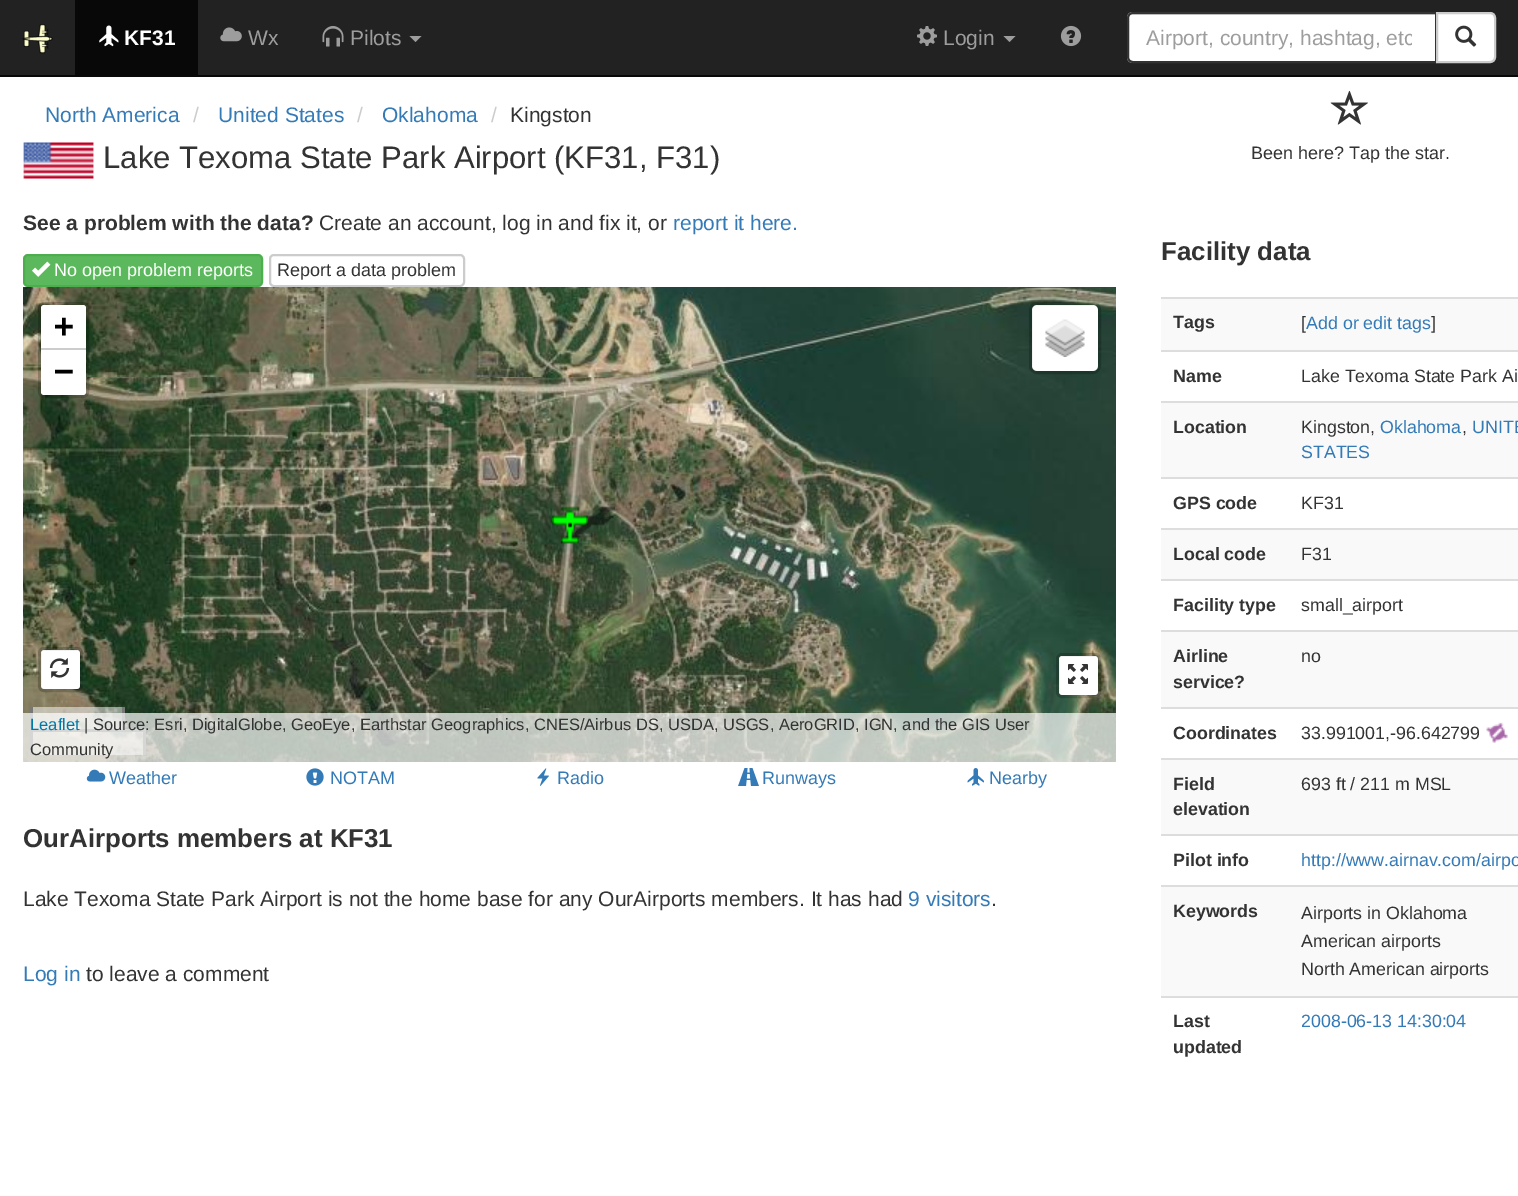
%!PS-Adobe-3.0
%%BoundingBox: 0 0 1518 1196
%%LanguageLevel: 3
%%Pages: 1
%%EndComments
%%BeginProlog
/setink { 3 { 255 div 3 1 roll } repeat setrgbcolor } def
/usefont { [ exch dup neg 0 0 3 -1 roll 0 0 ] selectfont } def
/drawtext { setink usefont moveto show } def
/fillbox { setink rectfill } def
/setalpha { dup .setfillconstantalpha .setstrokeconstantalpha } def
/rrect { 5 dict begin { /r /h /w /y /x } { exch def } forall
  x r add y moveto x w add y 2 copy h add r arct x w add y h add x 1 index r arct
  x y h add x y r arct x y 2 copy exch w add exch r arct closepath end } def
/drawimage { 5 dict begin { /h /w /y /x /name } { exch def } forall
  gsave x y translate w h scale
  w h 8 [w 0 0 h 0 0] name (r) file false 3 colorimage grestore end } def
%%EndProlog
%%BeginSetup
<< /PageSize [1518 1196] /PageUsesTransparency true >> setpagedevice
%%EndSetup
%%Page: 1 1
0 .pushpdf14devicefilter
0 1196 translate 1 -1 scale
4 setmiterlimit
0 0 1518 1196 255 255 255 fillbox
0 0 1518 75 34 34 34 fillbox
0 75 1518 2 8 8 8 fillbox
(assets/img1.rgb) 22 24 31 30 drawimage
75 0 123 75 8 8 8 fillbox
(assets/img2.rgb) 99 25 20 22 drawimage
(KF31) 124 45 /LiberationSans-Bold 21 255 255 255 drawtext
(assets/img3.rgb) 220 27 22 15 drawimage
(Wx) 248 45 /LiberationSans-Regular 21 157 157 157 drawtext
(assets/img4.rgb) 322 26 22 21 drawimage
(Pilots) 350 45 /LiberationSans-Regular 21 157 157 157 drawtext
409.5 36 moveto 421.5 36 lineto 415.5 42 lineto closepath fill
(assets/img5.rgb) 917 26 20 20 drawimage
(Login) 943 45 /LiberationSans-Regular 21 157 157 157 drawtext
1003.5 36 moveto 1015.5 36 lineto 1009.5 42 lineto closepath fill
(assets/img6.rgb) 1060 25 22 22 drawimage
255 255 255 setink
1133 12 moveto 1437 12 lineto 1437 63 lineto 1133 63 lineto 1129.5 63 1127 60.5 1127 57 curveto 1127 18 lineto 1127 14.5 1129.5 12 1133 12 curveto closepath fill
236 236 236 setink
1132 15 moveto 1436 15 lineto 1436 14 lineto 1133 14 lineto 1130 14 1128 17 1128 20 curveto 1128 17 1130 15 1132 15 curveto closepath fill
51 51 51 setink
2 setlinewidth
1133 13 moveto 1436 13 lineto 1436 62 lineto 1133 62 lineto 1130 62 1128 60 1128 57 curveto 1128 18 lineto 1128 15 1130 13 1133 13 curveto closepath stroke
gsave
1146 26 266 24 rectclip
(Airport, country, hashtag, etc) 1146 45 /LiberationSans-Regular 21 157 157 157 drawtext
grestore
255 255 255 setink
1437 13 moveto 1490 13 lineto 1493 13 1495 15 1495 18 curveto 1495 57 lineto 1495 60 1493 62 1490 62 curveto 1437 62 lineto closepath gsave fill grestore
204 204 204 setink
stroke
(assets/img7.rgb) 1455 25 22 22 drawimage
(North America) 45 122 /LiberationSans-Regular 21 51 122 183 drawtext
(/) 193 122 /LiberationSans-Regular 21 204 204 204 drawtext
(United States) 218 122 /LiberationSans-Regular 21 51 122 183 drawtext
(/) 357 122 /LiberationSans-Regular 21 204 204 204 drawtext
(Oklahoma) 382 122 /LiberationSans-Regular 21 51 122 183 drawtext
(/) 491 122 /LiberationSans-Regular 21 204 204 204 drawtext
(Kingston) 510 122 /LiberationSans-Regular 21 51 51 51 drawtext
(assets/img8.rgb) 23 142 71 37 drawimage
(Lake Texoma State Park Airport) 103 168 /LiberationSans-Regular 31.1 51 51 51 drawtext
(\(KF31, F31\)) 554 168 /LiberationSans-Regular 31.1 51 51 51 drawtext
(assets/img9.rgb) 1330 90 38 35 drawimage
(Been here? Tap the star.) 1251 159 /LiberationSans-Regular 18 51 51 51 drawtext
(See a problem with the data?) 23 230 /LiberationSans-Bold 21 51 51 51 drawtext
(Create an account, log in and fix it, or) 319 230 /LiberationSans-Regular 21 51 51 51 drawtext
(report it here.) 673 230 /LiberationSans-Regular 21 51 122 183 drawtext
92 184 92 setink
24 255 238 31 4 rrect gsave fill grestore
76 174 76 setink
stroke
(assets/img10.rgb) 32 261 19 16 drawimage
(No open problem reports) 54 276 /LiberationSans-Regular 18 255 255 255 drawtext
204 204 204 setink
270 255 194 31 4 rrect stroke
(Report a data problem) 277 276 /LiberationSans-Regular 18 51 51 51 drawtext
(assets/img11.rgb) 23 287 286 90 drawimage
(assets/img12.rgb) 309 287 384 90 drawimage
(assets/img13.rgb) 693 287 384 90 drawimage
(assets/img14.rgb) 1077 287 39 90 drawimage
(assets/img15.rgb) 23 377 286 384 drawimage
(assets/img16.rgb) 309 377 384 384 drawimage
(assets/img17.rgb) 693 377 384 384 drawimage
(assets/img18.rgb) 1077 377 39 384 drawimage
(assets/img19.rgb) 23 760 286 2 drawimage
(assets/img20.rgb) 309 760 384 2 drawimage
(assets/img21.rgb) 693 760 384 2 drawimage
(assets/img22.rgb) 1077 760 39 2 drawimage
(assets/img24.rgb) 561 506 54 38 drawimage
(assets/img23.rgb) 552 506 36 38 drawimage
0.2 setalpha
0 0 0 setink
3 setlinewidth
39.5 303.5 48 93 4.5 rrect stroke
1 setalpha
255 255 255 setink
44 305 moveto 83 305 lineto 84.5 305 86 306.5 86 308 curveto 86 350 lineto 41 350 lineto 41 308 lineto 41 306.5 42.5 305 44 305 curveto closepath fill
41 348 45 2 204 204 204 fillbox
(+) 54 337 /DejaVuSansMono-Bold 33 0 0 0 drawtext
255 255 255 setink
41 350 moveto 86 350 lineto 86 392 lineto 86 393.5 84.5 395 83 395 curveto 44 395 lineto 42.5 395 41 393.5 41 392 curveto closepath fill
(−) 54 382 /DejaVuSansMono-Bold 33 0 0 0 drawtext
255 255 255 setink
1032 305 66 66 5 rrect fill
0.2 setalpha
0 0 0 setink
1030.5 303.5 69 69 6.5 rrect stroke
1 setalpha
(assets/img25.rgb) 1045 319 40 38 drawimage
255 255 255 setink
41 650 39 39 3 rrect fill
0.2 setalpha
0 0 0 setink
39.5 648.5 42 42 4.5 rrect stroke
1 setalpha
(assets/img26.rgb) 49 658 21 20 drawimage
0.5 setalpha
33 707 89 22 255 255 255 fillbox
1 setalpha
122 707 3 25 119 119 119 fillbox
30 707 3 25 119 119 119 fillbox
0.5 setalpha
33 732 110 23 255 255 255 fillbox
1 setalpha
30 729 116 3 119 119 119 fillbox
143 729 3 26 119 119 119 fillbox
30 729 3 26 119 119 119 fillbox
255 255 255 setink
1059 656 39 39 3 rrect fill
0.2 setalpha
0 0 0 setink
1057.5 654.5 42 42 4.5 rrect stroke
1 setalpha
(assets/img27.rgb) 1068 664 20 20 drawimage
0.7 setalpha
23 713 1093 49 255 255 255 fillbox
1 setalpha
(Leaflet) 30 730 /LiberationSans-Regular 16.5 0 120 168 drawtext
(| Source: Esri, DigitalGlobe, GeoEye, Earthstar Geographics, CNES/Airbus DS, USDA, USGS, AeroGRID, IGN, and the GIS User) 84 730 /LiberationSans-Regular 16.5 51 51 51 drawtext
(Community) 30 755 /LiberationSans-Regular 16.5 51 51 51 drawtext
(assets/img28.rgb) 86 769 20 13 drawimage
(Weather) 109 784 /LiberationSans-Regular 18 51 122 183 drawtext
(assets/img29.rgb) 306 768 18 18 drawimage
(NOTAM) 330 784 /LiberationSans-Regular 18 51 122 183 drawtext
(assets/img30.rgb) 537 768 12 18 drawimage
(Radio) 557 784 /LiberationSans-Regular 18 51 122 183 drawtext
(assets/img31.rgb) 738 768 21 18 drawimage
(Runways) 762 784 /LiberationSans-Regular 18 51 122 183 drawtext
(assets/img32.rgb) 967 768 17 18 drawimage
(Nearby) 989 784 /LiberationSans-Regular 18 51 122 183 drawtext
(OurAirports members at KF31) 23 847 /LiberationSans-Bold 25.9 51 51 51 drawtext
(Lake Texoma State Park Airport is not the home base for any OurAirports members. It has had) 23 906 /LiberationSans-Regular 21 51 51 51 drawtext
(9 visitors) 908 906 /LiberationSans-Regular 21 51 122 183 drawtext
(.) 991 906 /LiberationSans-Regular 21 51 51 51 drawtext
(Log in) 23 981 /LiberationSans-Regular 21 51 122 183 drawtext
(to leave a comment) 86 981 /LiberationSans-Regular 21 51 51 51 drawtext
(Facility data) 1161 260 /LiberationSans-Bold 25.9 51 51 51 drawtext
1161 299 357 51 249 249 249 fillbox
(Tags) 1173 328 /LiberationSans-Bold 17.8 51 51 51 drawtext
1161 297 357 2 221 221 221 fillbox
([) 1301 329 /LiberationSans-Regular 17.8 51 51 51 drawtext
(Add or edit tags) 1306 329 /LiberationSans-Regular 17.8 51 122 183 drawtext
(]) 1431 329 /LiberationSans-Regular 17.8 51 51 51 drawtext
(Name) 1173 382 /LiberationSans-Bold 17.8 51 51 51 drawtext
1161 350 357 2 221 221 221 fillbox
(Lake Texoma State Park Ai) 1301 382 /LiberationSans-Regular 17.8 51 51 51 drawtext
1161 403 357 74 249 249 249 fillbox
(Location) 1173 433 /LiberationSans-Bold 17.8 51 51 51 drawtext
1161 401 357 2 221 221 221 fillbox
(Kingston,) 1301 433 /LiberationSans-Regular 17.8 51 51 51 drawtext
(Oklahoma) 1380 433 /LiberationSans-Regular 17.8 51 122 183 drawtext
(,) 1462 433 /LiberationSans-Regular 17.8 51 51 51 drawtext
(UNITE) 1472 433 /LiberationSans-Regular 17.8 51 122 183 drawtext
(STATES) 1301 458 /LiberationSans-Regular 17.8 51 122 183 drawtext
(GPS code) 1173 509 /LiberationSans-Bold 17.8 51 51 51 drawtext
1161 477 357 2 221 221 221 fillbox
(KF31) 1301 509 /LiberationSans-Regular 17.8 51 51 51 drawtext
1161 530 357 49 249 249 249 fillbox
(Local code) 1173 560 /LiberationSans-Bold 17.8 51 51 51 drawtext
1161 528 357 2 221 221 221 fillbox
(F31) 1301 560 /LiberationSans-Regular 17.8 51 51 51 drawtext
(Facility type) 1173 611 /LiberationSans-Bold 17.8 51 51 51 drawtext
1161 579 357 2 221 221 221 fillbox
(small_airport) 1301 611 /LiberationSans-Regular 17.8 51 51 51 drawtext
1161 632 357 75 249 249 249 fillbox
(Airline) 1173 662 /LiberationSans-Bold 17.8 51 51 51 drawtext
(service?) 1173 688 /LiberationSans-Bold 17.8 51 51 51 drawtext
1161 630 357 2 221 221 221 fillbox
(no) 1301 662 /LiberationSans-Regular 17.8 51 51 51 drawtext
(Coordinates) 1173 739 /LiberationSans-Bold 17.8 51 51 51 drawtext
1161 707 357 2 221 221 221 fillbox
(33.991001,-96.642799) 1301 739 /LiberationSans-Regular 17.8 51 51 51 drawtext
(assets/img33.rgb) 1486 722 22 21 drawimage
1161 760 357 74 249 249 249 fillbox
(Field) 1173 790 /LiberationSans-Bold 17.8 51 51 51 drawtext
(elevation) 1173 815 /LiberationSans-Bold 17.8 51 51 51 drawtext
1161 758 357 2 221 221 221 fillbox
(693 ft / 211 m MSL) 1301 790 /LiberationSans-Regular 17.8 51 51 51 drawtext
(Pilot info) 1173 866 /LiberationSans-Bold 17.8 51 51 51 drawtext
1161 834 357 2 221 221 221 fillbox
(http://www.airnav.com/airpo) 1301 866 /LiberationSans-Regular 17.8 51 122 183 drawtext
1161 887 357 109 249 249 249 fillbox
(Keywords) 1173 917 /LiberationSans-Bold 17.8 51 51 51 drawtext
1161 885 357 2 221 221 221 fillbox
(Airports in Oklahoma) 1301 919 /LiberationSans-Regular 17.8 51 51 51 drawtext
(American airports) 1301 947 /LiberationSans-Regular 17.8 51 51 51 drawtext
(North American airports) 1301 975 /LiberationSans-Regular 17.8 51 51 51 drawtext
(Last) 1173 1027 /LiberationSans-Bold 17.8 51 51 51 drawtext
(updated) 1173 1053 /LiberationSans-Bold 17.8 51 51 51 drawtext
1161 996 357 2 221 221 221 fillbox
(2008-06-13 14:30:04) 1301 1027 /LiberationSans-Regular 17.8 51 122 183 drawtext
.poppdf14devicefilter showpage
%%EOF
